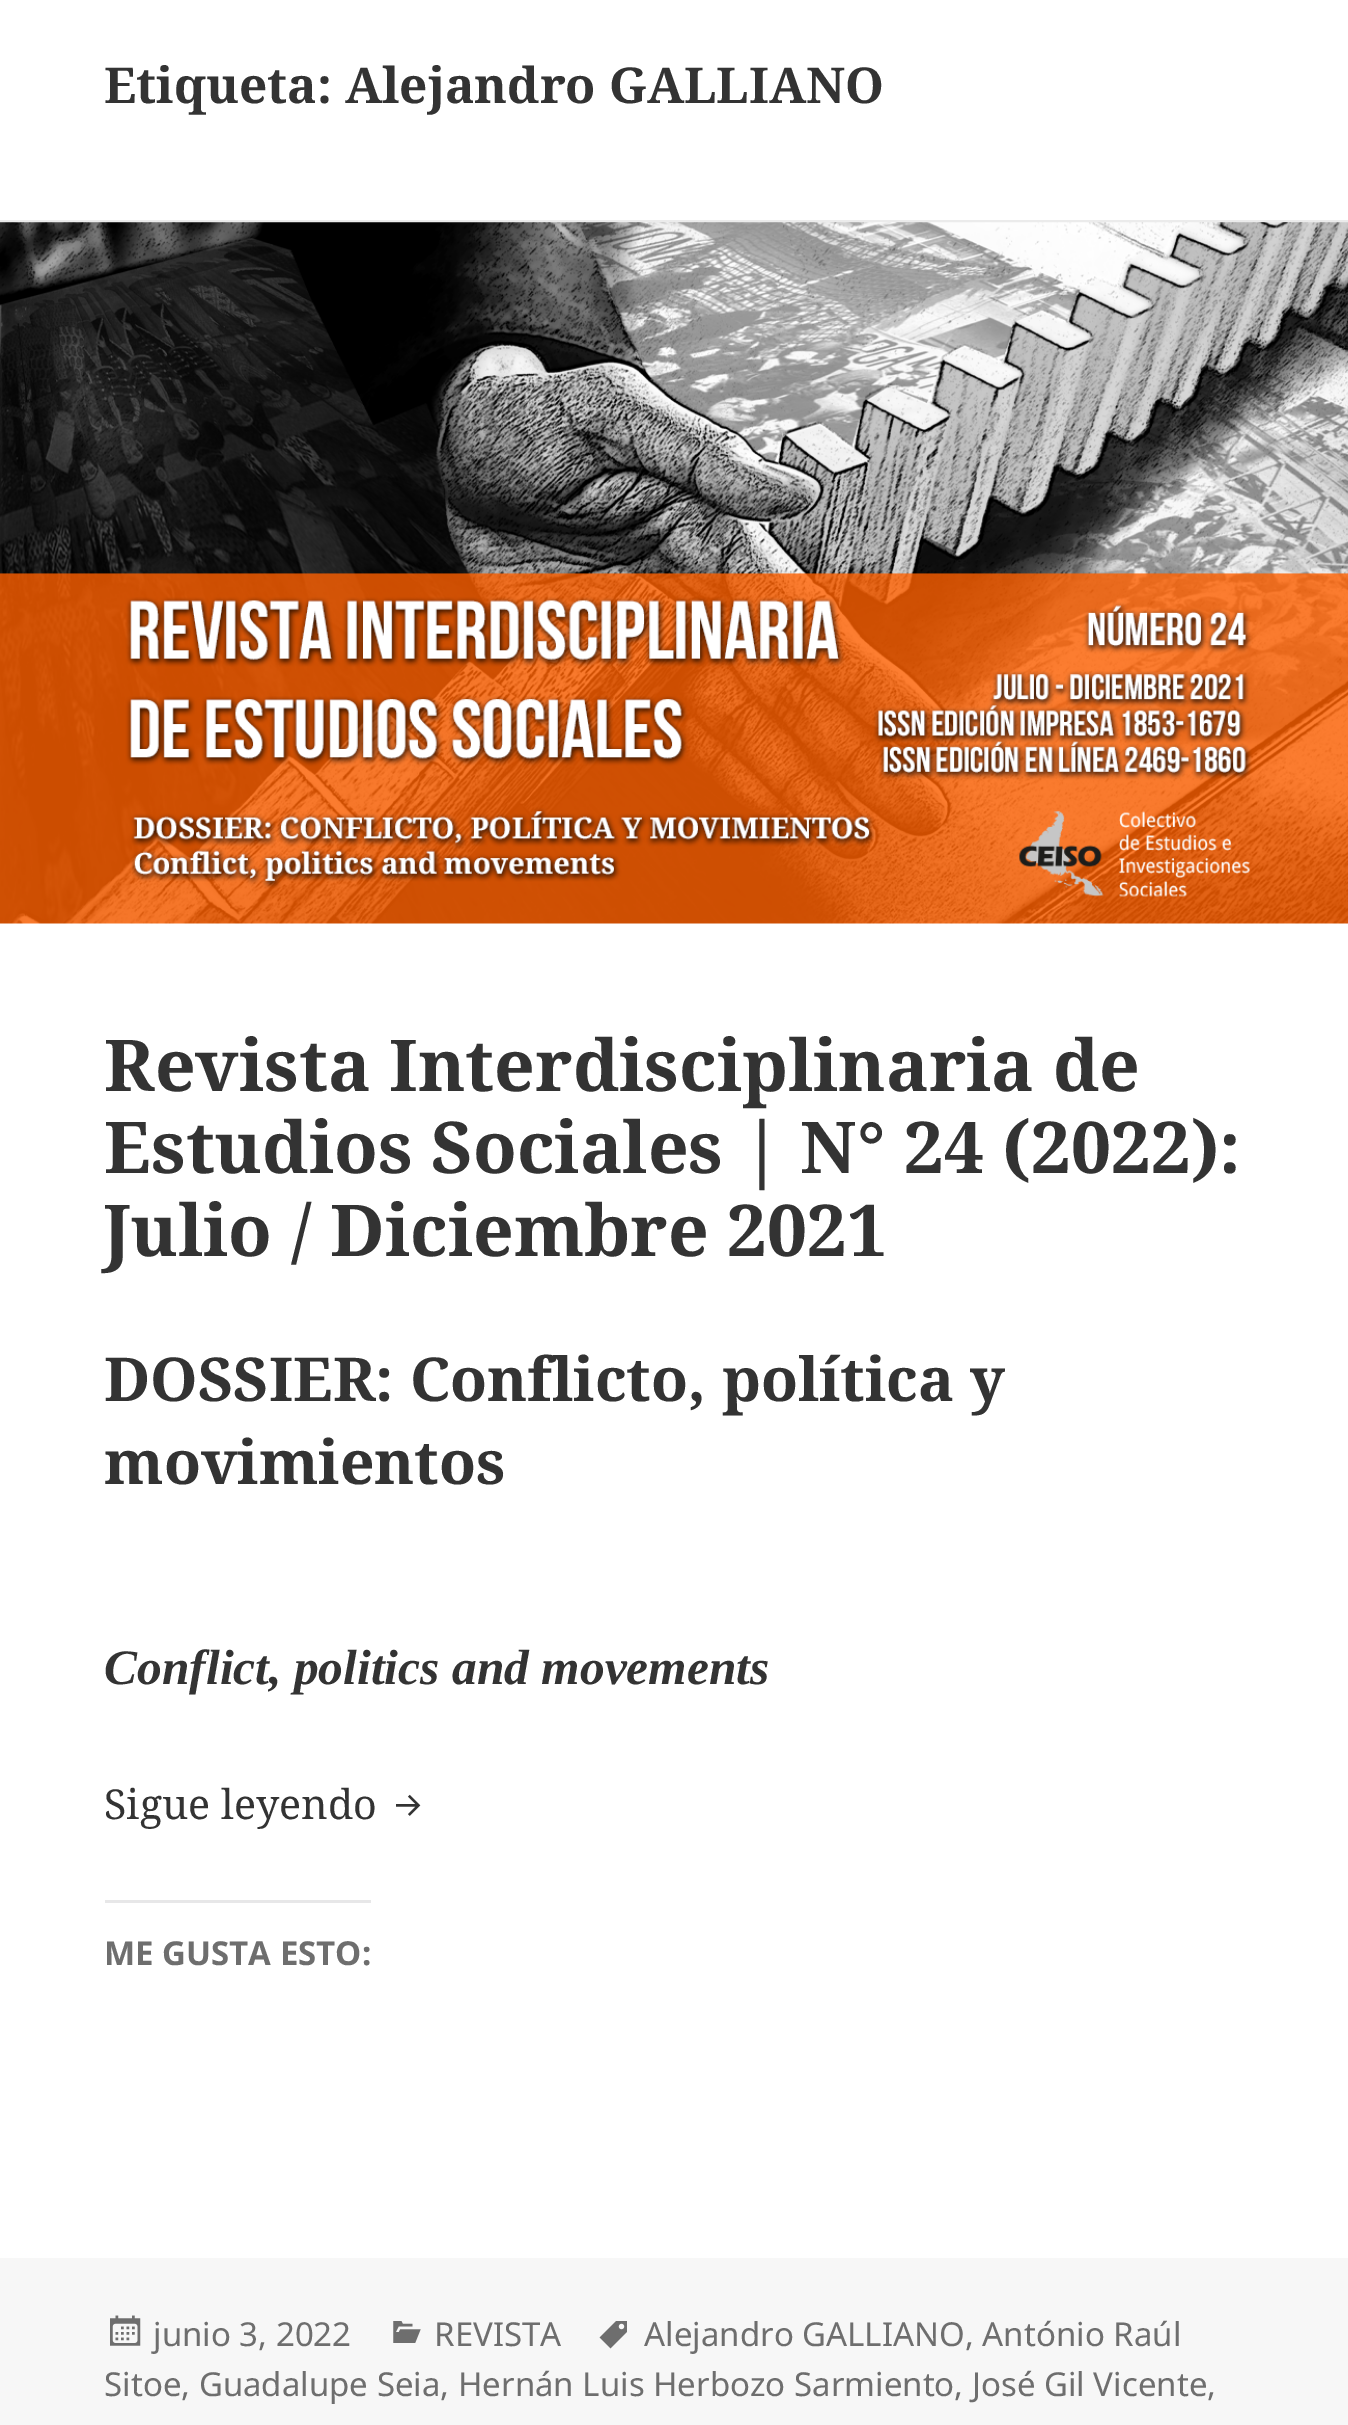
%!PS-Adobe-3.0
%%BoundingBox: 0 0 1348 2425
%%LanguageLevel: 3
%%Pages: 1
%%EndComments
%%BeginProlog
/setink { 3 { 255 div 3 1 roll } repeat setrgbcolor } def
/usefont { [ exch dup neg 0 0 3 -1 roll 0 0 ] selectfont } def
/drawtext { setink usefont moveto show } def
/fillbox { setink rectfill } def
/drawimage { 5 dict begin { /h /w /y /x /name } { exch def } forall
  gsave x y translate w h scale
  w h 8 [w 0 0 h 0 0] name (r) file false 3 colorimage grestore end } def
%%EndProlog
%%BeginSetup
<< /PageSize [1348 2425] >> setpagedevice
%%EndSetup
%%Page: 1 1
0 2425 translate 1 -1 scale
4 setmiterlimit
0 0 1348 2425 255 255 255 fillbox
0 220 1348 3 235 235 235 fillbox
(Etiqueta: Alejandro GALLIANO) 104 103 /NotoSerif-Bold 49.5 51 51 51 drawtext
(assets/img1.rgb) 0 222 1348 702 drawimage
(Revista Interdisciplinaria de) 104 1091 /NotoSerif-Bold 71.5 51 51 51 drawtext
(Estudios Sociales | N° 24 \(2022\):) 104 1173 /NotoSerif-Bold 71.5 51 51 51 drawtext
(Julio / Diciembre 2021) 104 1256 /NotoSerif-Bold 71.5 51 51 51 drawtext
(DOSSIER: Conflicto, política y) 104 1401 /NotoSerif-Bold 60.5 51 51 51 drawtext
(movimientos) 104 1484 /NotoSerif-Bold 60.5 51 51 51 drawtext
(Conflict, politics and movements) 104 1684 /LiberationSerif-BoldItalic 49.5 51 51 51 drawtext
(Sigue leyendo) 104 1819 /NotoSerif-Regular 41.25 51 51 51 drawtext
(assets/img2.rgb) 396 1794 25 22 drawimage
105 1900 266 3 231 231 232 fillbox
(ME GUSTA ESTO:) 104 1965 /NotoSans-Bold 33 110 110 110 drawtext
0 2258 1348 167 247 247 247 fillbox
(assets/img3.rgb) 599 2321 28 28 drawimage
(Alejandro GALLIANO, António Raúl) 644 2346 /NotoSans-Regular 33 110 110 110 drawtext
(Sitoe, Guadalupe Seia, Hernán Luis Herbozo Sarmiento, José Gil Vicente,) 104 2396 /NotoSans-Regular 33 110 110 110 drawtext
(assets/img4.rgb) 110 2315 31 31 drawimage
(junio 3, 2022) 153 2346 /NotoSans-Regular 33 110 110 110 drawtext
(assets/img5.rgb) 393 2321 28 22 drawimage
(REVISTA) 434 2346 /NotoSans-Regular 33 110 110 110 drawtext
showpage
%%EOF
